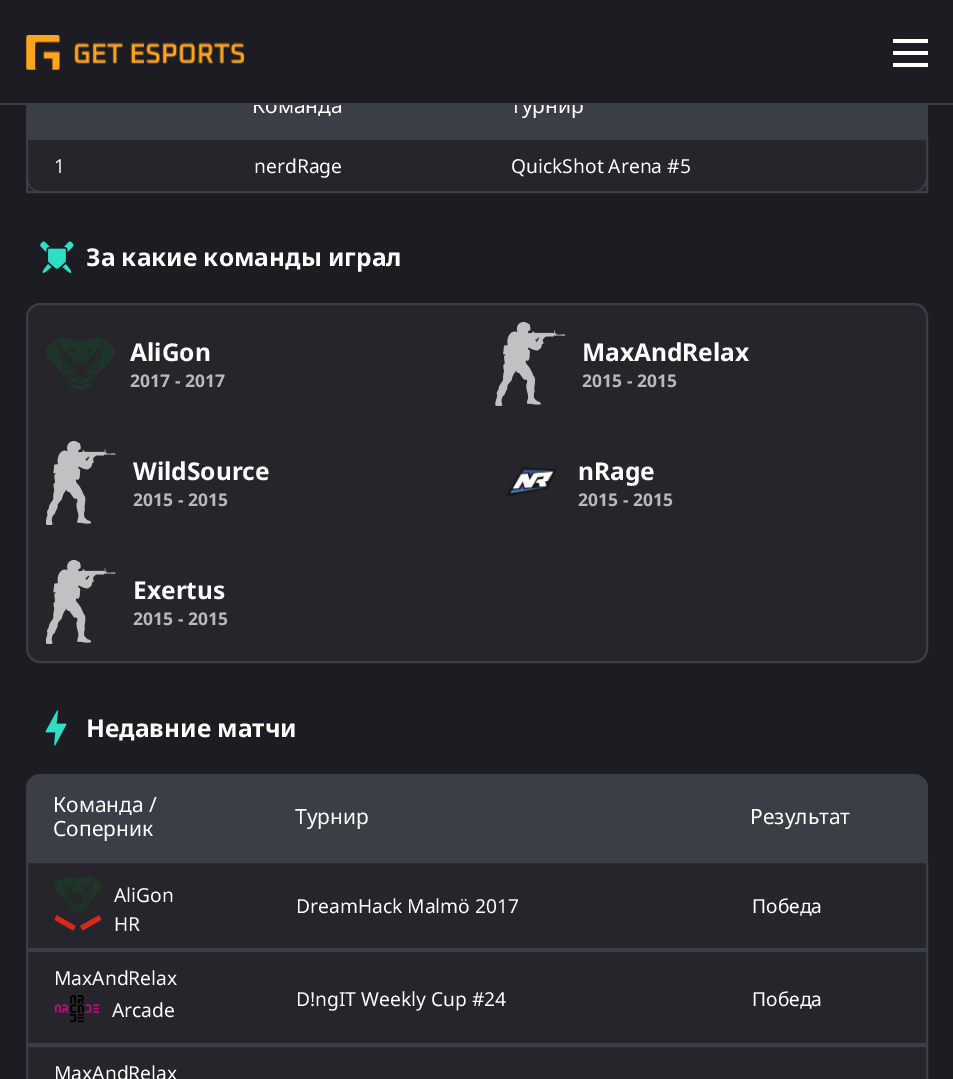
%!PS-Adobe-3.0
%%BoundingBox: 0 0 953 1079
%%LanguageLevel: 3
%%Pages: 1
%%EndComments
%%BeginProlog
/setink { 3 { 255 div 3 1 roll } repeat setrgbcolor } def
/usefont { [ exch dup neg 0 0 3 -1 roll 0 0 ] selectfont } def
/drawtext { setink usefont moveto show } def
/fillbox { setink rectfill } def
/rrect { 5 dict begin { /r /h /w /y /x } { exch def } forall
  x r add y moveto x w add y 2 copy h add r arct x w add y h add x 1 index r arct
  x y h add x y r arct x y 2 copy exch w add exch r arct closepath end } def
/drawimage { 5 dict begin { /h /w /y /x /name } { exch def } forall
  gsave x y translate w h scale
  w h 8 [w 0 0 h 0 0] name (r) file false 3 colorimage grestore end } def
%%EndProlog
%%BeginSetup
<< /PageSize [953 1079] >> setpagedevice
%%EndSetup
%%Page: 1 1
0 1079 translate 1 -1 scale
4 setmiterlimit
0 0 953 1079 28 28 34 fillbox
26 105 902 33 58 63 71 fillbox
(Команда) 252 113 /NotoSans-Regular 21 255 255 255 drawtext
(Турнир) 510 113 /NotoSans-Regular 21 255 255 255 drawtext
254 98 328 5 28 28 34 fillbox
(assets/img1.rgb) 26 35 219 35 drawimage
893 39 35 4 255 255 255 fillbox
893 51 35 4 255 255 255 fillbox
893 63 35 4 255 255 255 fillbox
0 103 953 2 58 63 71 fillbox
37 37 43 setink
27 139 moveto 927 139 lineto 927 192 lineto 27 192 lineto closepath gsave fill grestore
58 63 71 setink
2 setlinewidth
stroke
225 192 moveto 40 192 lineto 37 192 33 191 31 188 curveto 31 187 lineto 34 190 37 191 40 191 curveto 224 191 lineto closepath fill
28 140 moveto 28 178 lineto 28 182 29 185 31 187 curveto 31 188 lineto 28 186 27 184 26 181 curveto 26 138 lineto closepath fill
(1) 54 173 /NotoSans-Regular 19.25 255 255 255 drawtext
(nerdRage) 254 173 /NotoSans-Regular 19.25 255 255 255 drawtext
58 63 71 setink
928 138 moveto 928 182 lineto 927 184 925 187 923 188 curveto 922 187 lineto 924 185 926 182 926 178 curveto 926 140 lineto closepath fill
923 188 moveto 921 191 917 192 914 192 curveto 484 192 lineto 485 190 lineto 485 191 lineto 914 191 lineto 917 191 920 190 922 187 curveto closepath fill
(QuickShot Arena #5) 511 173 /NotoSans-Regular 19.25 255 255 255 drawtext
(assets/img2.rgb) 40 241 34 32 drawimage
(За какие команды играл) 86 266 /NotoSans-Bold 24.5 255 255 255 drawtext
37 37 43 setink
27 304 900 358 13 rrect gsave fill grestore
58 63 71 setink
stroke
(assets/img3.rgb) 45 337 71 53 drawimage
(AliGon) 130 361 /NotoSans-Bold 24.5 255 255 255 drawtext
(2017 - 2017) 130 387 /NotoSans-Bold 17.5 184 185 186 drawtext
(assets/img4.rgb) 495 322 70 84 drawimage
(MaxAndRelax) 582 361 /NotoSans-Bold 24.5 255 255 255 drawtext
(2015 - 2015) 582 387 /NotoSans-Bold 17.5 184 185 186 drawtext
(assets/img5.rgb) 46 441 70 84 drawimage
(WildSource) 133 480 /NotoSans-Bold 24.5 255 255 255 drawtext
(2015 - 2015) 133 506 /NotoSans-Bold 17.5 184 185 186 drawtext
(assets/img6.rgb) 505 467 52 30 drawimage
(nRage) 578 480 /NotoSans-Bold 24.5 255 255 255 drawtext
(2015 - 2015) 578 506 /NotoSans-Bold 17.5 184 185 186 drawtext
(assets/img5.rgb) 46 560 70 84 drawimage
(Exertus) 133 599 /NotoSans-Bold 24.5 255 255 255 drawtext
(2015 - 2015) 133 625 /NotoSans-Bold 17.5 184 185 186 drawtext
(assets/img7.rgb) 45 710 22 36 drawimage
(Недавние матчи) 86 737 /NotoSans-Bold 24.5 255 255 255 drawtext
58 63 71 setink
40 774 moveto 268 774 lineto 268 861 lineto 26 861 lineto 26 788 lineto 26 780.5 32.5 774 40 774 curveto closepath fill
(Команда /) 53 812 /NotoSans-Regular 21 255 255 255 drawtext
(Соперник) 53 836 /NotoSans-Regular 21 255 255 255 drawtext
268 774 457 87 58 63 71 fillbox
(Турнир) 295 824 /NotoSans-Regular 21 255 255 255 drawtext
58 63 71 setink
725 774 moveto 914 774 lineto 921.5 774 928 780.5 928 788 curveto 928 861 lineto 725 861 lineto closepath fill
(Результат) 750 824 /NotoSans-Regular 21 255 255 255 drawtext
37 37 43 setink
27 862 moveto 927 862 lineto 927 949 lineto 27 949 lineto closepath gsave fill grestore
58 63 71 setink
stroke
(assets/img8.rgb) 54 876 48 36 drawimage
(AliGon) 114 902 /NotoSans-Regular 19.25 255 255 255 drawtext
(assets/img9.rgb) 54 915 48 16 drawimage
(HR) 114 931 /NotoSans-Regular 19.25 255 255 255 drawtext
(DreamHack Malmö 2017) 296 913 /NotoSans-Regular 19.25 255 255 255 drawtext
(Победа) 752 913 /NotoSans-Regular 19.25 255 255 255 drawtext
37 37 43 setink
27 951 moveto 927 951 lineto 927 1044 lineto 27 1044 lineto closepath gsave fill grestore
58 63 71 setink
stroke
(MaxAndRelax) 54 985 /NotoSans-Regular 19.25 255 255 255 drawtext
(assets/img10.rgb) 54 995 45 28 drawimage
(Arcade) 112 1017 /NotoSans-Regular 19.25 255 255 255 drawtext
(D!ngIT Weekly Cup #24) 296 1006 /NotoSans-Regular 19.25 255 255 255 drawtext
(Победа) 752 1006 /NotoSans-Regular 19.25 255 255 255 drawtext
37 37 43 setink
27 1046 moveto 927 1046 lineto 927 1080 lineto 27 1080 lineto closepath gsave fill grestore
58 63 71 setink
stroke
(MaxAndRelax) 54 1080 /NotoSans-Regular 19.25 255 255 255 drawtext
showpage
%%EOF
